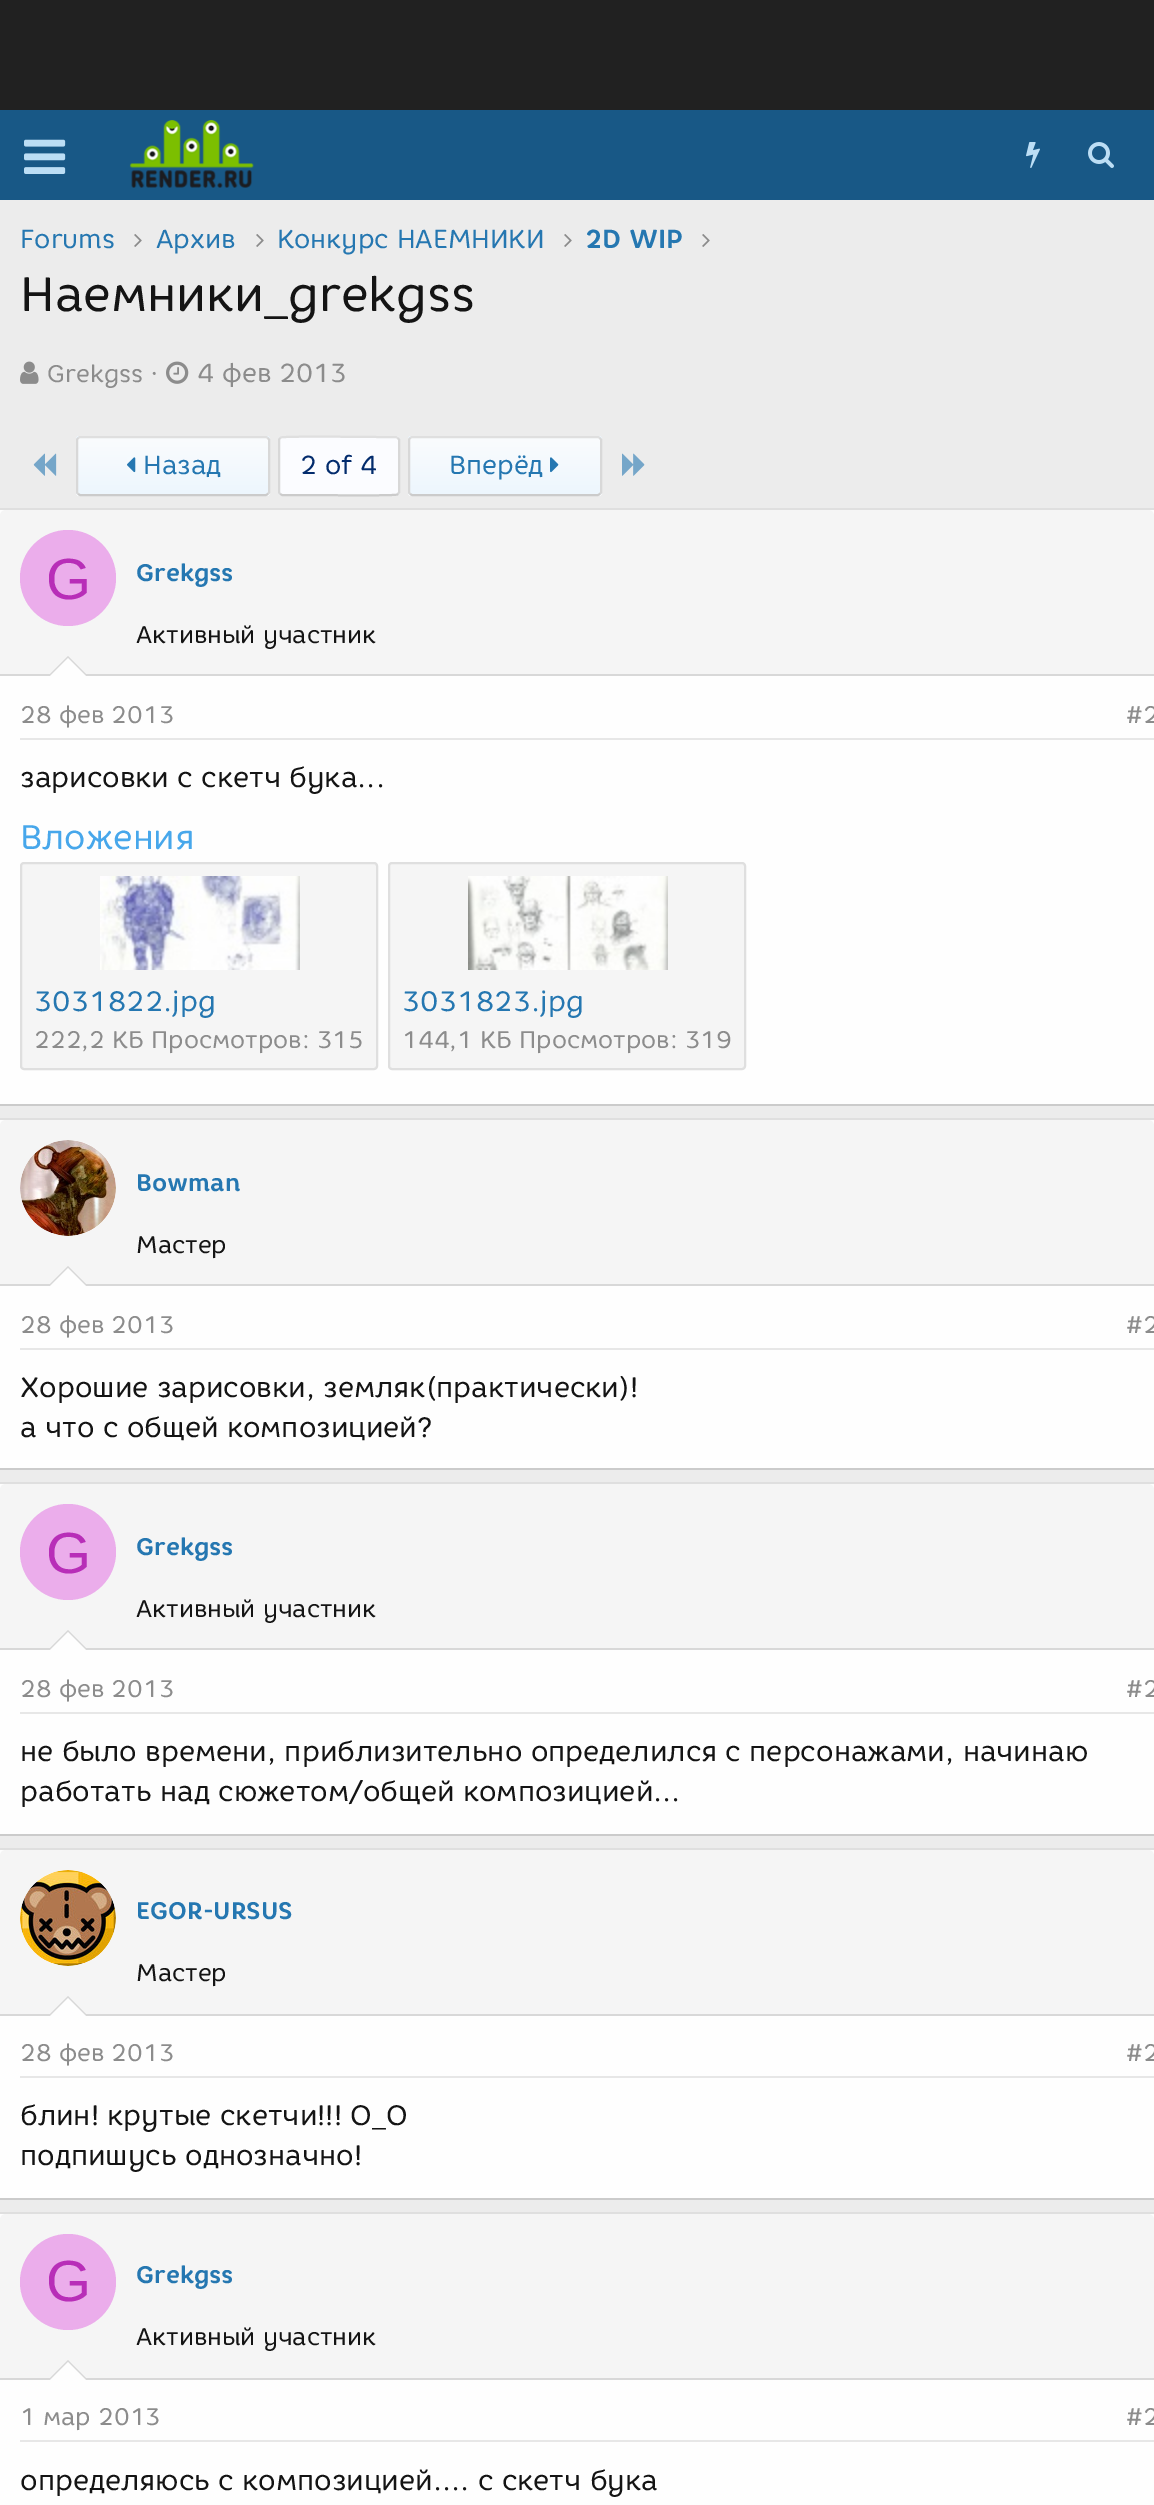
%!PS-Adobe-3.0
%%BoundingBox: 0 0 1154 2505
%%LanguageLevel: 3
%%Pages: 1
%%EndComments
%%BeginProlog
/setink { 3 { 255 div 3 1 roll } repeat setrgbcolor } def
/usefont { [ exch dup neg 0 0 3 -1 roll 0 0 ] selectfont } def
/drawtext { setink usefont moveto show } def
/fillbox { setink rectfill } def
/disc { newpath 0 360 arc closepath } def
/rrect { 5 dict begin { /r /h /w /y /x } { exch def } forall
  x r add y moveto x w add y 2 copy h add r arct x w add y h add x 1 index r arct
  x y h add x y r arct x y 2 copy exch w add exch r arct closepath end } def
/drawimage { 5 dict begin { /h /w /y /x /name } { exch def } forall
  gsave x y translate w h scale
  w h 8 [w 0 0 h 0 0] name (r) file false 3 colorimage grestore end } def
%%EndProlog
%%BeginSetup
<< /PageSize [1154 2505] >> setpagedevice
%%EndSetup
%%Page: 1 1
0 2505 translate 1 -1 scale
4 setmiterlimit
0 0 1154 2505 236 236 236 fillbox
0 0 1154 110 33 33 33 fillbox
0 110 1154 90 24 88 134 fillbox
(assets/img1.rgb) 24 139 42 35 drawimage
(assets/img2.rgb) 129 120 125 68 drawimage
(assets/img3.rgb) 1026 142 14 26 drawimage
(assets/img4.rgb) 1088 142 26 26 drawimage
(Forums) 20 248 /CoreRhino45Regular-Regular 26 37 119 177 drawtext
(assets/img5.rgb) 134 234 8 13 drawimage
(Архив) 156 248 /CoreRhino45Regular-Regular 26 37 119 177 drawtext
(assets/img5.rgb) 256 234 8 13 drawimage
(Конкурс НАЕМНИКИ) 277 248 /CoreRhino45Regular-Regular 26 37 119 177 drawtext
(assets/img5.rgb) 564 234 8 13 drawimage
(2D WIP) 585 248 /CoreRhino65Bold-Bold 26 37 119 177 drawtext
(assets/img5.rgb) 702 234 8 13 drawimage
(Наемники_grekgss) 20 311 /CoreRhino45Regular-Regular 48 20 20 20 drawtext
(assets/img6.rgb) 20 361 19 23 drawimage
(Grekgss) 47 382 /CoreRhino45Regular-Regular 24 140 140 140 drawtext
(·) 150 382 /CoreRhino45Regular-Regular 26 140 140 140 drawtext
(assets/img7.rgb) 166 361 23 23 drawimage
(4 фев 2013) 197 382 /CoreRhino45Regular-Regular 26 140 140 140 drawtext
(assets/img8.rgb) 33 453 24 23 drawimage
gsave
76 436 194 60 4 rrect clip newpath
gsave 76 436 moveto 270 436 lineto 270 438 lineto 76 438 lineto closepath clip newpath
<< /ShadingType 2 /ColorSpace /DeviceRGB /Coords [173 438 173 382] /Extend [true true] /Function << /FunctionType 2 /Domain [0 1] /C0 [0.929 0.965 0.992] /C1 [0.98 0.988 0.996] /N 1 >> >> shfill grestore
gsave 76 438 moveto 270 438 lineto 270 494 lineto 76 494 lineto closepath clip newpath
<< /ShadingType 2 /ColorSpace /DeviceRGB /Coords [173 494 173 438] /Extend [true true] /Function << /FunctionType 2 /Domain [0 1] /C0 [0.929 0.965 0.992] /C1 [0.98 0.988 0.996] /N 1 >> >> shfill grestore
gsave 76 494 moveto 270 494 lineto 270 496 lineto 76 496 lineto closepath clip newpath
<< /ShadingType 2 /ColorSpace /DeviceRGB /Coords [173 550 173 494] /Extend [true true] /Function << /FunctionType 2 /Domain [0 1] /C0 [0.929 0.965 0.992] /C1 [0.98 0.988 0.996] /N 1 >> >> shfill grestore
grestore
223 223 223 setink
2 setlinewidth
78 438 moveto 80 437 lineto 266 437 lineto 268 438 lineto stroke
216 216 216 setink
268 438 moveto 269 439.5 lineto 269 492.5 lineto 268 494 lineto stroke
203 203 203 setink
268 494 moveto 266 495 lineto 80 495 lineto 78 494 lineto stroke
216 216 216 setink
78 494 moveto 77 492.5 lineto 77 439.5 lineto 78 438 lineto stroke
(assets/img9.rgb) 127 457 9 16 drawimage
(Назад) 143 474 /CoreRhino45Regular-Regular 26 37 119 177 drawtext
251 252 255 setink
278 436 122 60 4 rrect fill
223 223 223 setink
280 438 moveto 280.5 437.5 lineto 282.5 436 367 437 377 437 curveto 396 437 lineto 398 438 lineto stroke
216 216 216 setink
398 438 moveto 399 439.5 lineto 399 492.5 lineto 398 494 lineto stroke
203 203 203 setink
398 494 moveto 397.5 494.5 lineto 395.5 496 311 495 301 495 curveto 282 495 lineto 280 494 lineto stroke
216 216 216 setink
280 494 moveto 279 492.5 lineto 279 439.5 lineto 280 438 lineto stroke
(2 of 4) 300 474 /CoreRhino45Regular-Regular 26 3 44 109 drawtext
gsave
408 436 194 60 4 rrect clip newpath
gsave 408 436 moveto 602 436 lineto 602 438 lineto 408 438 lineto closepath clip newpath
<< /ShadingType 2 /ColorSpace /DeviceRGB /Coords [505 438 505 382] /Extend [true true] /Function << /FunctionType 2 /Domain [0 1] /C0 [0.929 0.965 0.992] /C1 [0.98 0.988 0.996] /N 1 >> >> shfill grestore
gsave 408 438 moveto 602 438 lineto 602 494 lineto 408 494 lineto closepath clip newpath
<< /ShadingType 2 /ColorSpace /DeviceRGB /Coords [505 494 505 438] /Extend [true true] /Function << /FunctionType 2 /Domain [0 1] /C0 [0.929 0.965 0.992] /C1 [0.98 0.988 0.996] /N 1 >> >> shfill grestore
gsave 408 494 moveto 602 494 lineto 602 496 lineto 408 496 lineto closepath clip newpath
<< /ShadingType 2 /ColorSpace /DeviceRGB /Coords [505 550 505 494] /Extend [true true] /Function << /FunctionType 2 /Domain [0 1] /C0 [0.929 0.965 0.992] /C1 [0.98 0.988 0.996] /N 1 >> >> shfill grestore
grestore
223 223 223 setink
410 438 moveto 412 437 lineto 598 437 lineto 600 438 lineto stroke
216 216 216 setink
600 438 moveto 601 439.5 lineto 601 492.5 lineto 600 494 lineto stroke
203 203 203 setink
600 494 moveto 598 495 lineto 412 495 lineto 410 494 lineto stroke
216 216 216 setink
410 494 moveto 409 492.5 lineto 409 439.5 lineto 410 438 lineto stroke
(Вперёд) 449 474 /CoreRhino45Regular-Regular 26 37 119 177 drawtext
(assets/img10.rgb) 550 457 9 16 drawimage
(assets/img11.rgb) 622 453 23 23 drawimage
0 510 1154 594 254 254 254 fillbox
0 508 1154 2 223 223 223 fillbox
0 1104 1154 2 203 203 203 fillbox
245 245 245 setink
6 510 moveto 1148 510 lineto 1151.5 510 1154 512.5 1154 516 curveto 1154 676 lineto 0 676 lineto 0 516 lineto 0 512.5 2.5 510 6 510 curveto closepath fill
0 674 1154 2 216 216 216 fillbox
235 173 235 setink
68 578 48 disc fill
(G) 46 599 /LiberationSans-Regular 58 184 46 184 drawtext
(Grekgss) 136 581 /CoreRhino65Bold-Bold 24 37 119 177 drawtext
(Активный участник) 136 643 /CoreRhino45Regular-Regular 24 20 20 20 drawtext
216 216 216 setink
88 676 moveto 48 676 lineto 68 656 lineto closepath fill
254 254 254 setink
86 676 moveto 50 676 lineto 68 658 lineto closepath fill
20 738 1134 2 231 231 231 fillbox
(28 фев 2013) 20 723 /CoreRhino45Regular-Regular 24 140 140 140 drawtext
(#2) 1126 723 /CoreRhino45Regular-Regular 24 140 140 140 drawtext
(зарисовки с скетч бука...) 20 787 /CoreRhino45Regular-Regular 28 20 20 20 drawtext
(Вложения) 20 849 /CoreRhino45Regular-Regular 34 71 167 235 drawtext
245 245 245 setink
21 863 356 206 3 rrect gsave fill grestore
223 223 223 setink
stroke
(assets/img12.rgb) 100 876 200 94 drawimage
(3031822.jpg) 34 1011 /CoreRhino45Regular-Regular 28 37 119 177 drawtext
(222,2 КБ) 34 1048 /CoreRhino45Regular-Regular 24 140 140 140 drawtext
(Просмотров: 315) 151 1048 /CoreRhino45Regular-Regular 24 140 140 140 drawtext
245 245 245 setink
389 863 356 206 3 rrect gsave fill grestore
223 223 223 setink
stroke
(assets/img13.rgb) 468 876 200 94 drawimage
(3031823.jpg) 402 1011 /CoreRhino45Regular-Regular 28 37 119 177 drawtext
(144,1 КБ) 402 1048 /CoreRhino45Regular-Regular 24 140 140 140 drawtext
(Просмотров: 319) 519 1048 /CoreRhino45Regular-Regular 24 140 140 140 drawtext
0 1120 1154 348 254 254 254 fillbox
0 1118 1154 2 223 223 223 fillbox
0 1468 1154 2 203 203 203 fillbox
245 245 245 setink
6 1120 moveto 1148 1120 lineto 1151.5 1120 1154 1122.5 1154 1126 curveto 1154 1286 lineto 0 1286 lineto 0 1126 lineto 0 1122.5 2.5 1120 6 1120 curveto closepath fill
0 1284 1154 2 216 216 216 fillbox
254 254 254 setink
68 1188 48 disc fill
(assets/img14.rgb) 20 1140 96 96 drawimage
(Bowman) 136 1191 /CoreRhino65Bold-Bold 24 37 119 177 drawtext
(Мастер) 136 1253 /CoreRhino45Regular-Regular 24 20 20 20 drawtext
216 216 216 setink
88 1286 moveto 48 1286 lineto 68 1266 lineto closepath fill
254 254 254 setink
86 1286 moveto 50 1286 lineto 68 1268 lineto closepath fill
20 1348 1134 2 231 231 231 fillbox
(28 фев 2013) 20 1333 /CoreRhino45Regular-Regular 24 140 140 140 drawtext
(#2) 1126 1333 /CoreRhino45Regular-Regular 24 140 140 140 drawtext
(Хорошие зарисовки, земляк\(практически\)!) 20 1397 /CoreRhino45Regular-Regular 28 20 20 20 drawtext
(а что с общей композицией?) 20 1437 /CoreRhino45Regular-Regular 28 20 20 20 drawtext
0 1484 1154 350 254 254 254 fillbox
0 1482 1154 2 223 223 223 fillbox
0 1834 1154 2 203 203 203 fillbox
245 245 245 setink
6 1484 moveto 1148 1484 lineto 1151.5 1484 1154 1486.5 1154 1490 curveto 1154 1650 lineto 0 1650 lineto 0 1490 lineto 0 1486.5 2.5 1484 6 1484 curveto closepath fill
0 1648 1154 2 216 216 216 fillbox
235 173 235 setink
68 1552 48 disc fill
(G) 46 1573 /LiberationSans-Regular 58 184 46 184 drawtext
(Grekgss) 136 1555 /CoreRhino65Bold-Bold 24 37 119 177 drawtext
(Активный участник) 136 1617 /CoreRhino45Regular-Regular 24 20 20 20 drawtext
216 216 216 setink
88 1650 moveto 48 1650 lineto 68 1630 lineto closepath fill
254 254 254 setink
86 1650 moveto 50 1650 lineto 68 1632 lineto closepath fill
20 1712 1134 2 231 231 231 fillbox
(28 фев 2013) 20 1697 /CoreRhino45Regular-Regular 24 140 140 140 drawtext
(#2) 1126 1697 /CoreRhino45Regular-Regular 24 140 140 140 drawtext
(не было времени, приблизительно определился с персонажами, начинаю) 20 1761 /CoreRhino45Regular-Regular 28 20 20 20 drawtext
(работать над сюжетом/общей композицией...) 20 1801 /CoreRhino45Regular-Regular 28 20 20 20 drawtext
0 1850 1154 348 254 254 254 fillbox
0 1848 1154 2 223 223 223 fillbox
0 2198 1154 2 203 203 203 fillbox
245 245 245 setink
6 1850 moveto 1148 1850 lineto 1151.5 1850 1154 1852.5 1154 1856 curveto 1154 2016 lineto 0 2016 lineto 0 1856 lineto 0 1852.5 2.5 1850 6 1850 curveto closepath fill
0 2014 1154 2 216 216 216 fillbox
254 254 254 setink
68 1918 48 disc fill
(assets/img15.rgb) 20 1870 96 96 drawimage
(EGOR-URSUS) 136 1919 /CoreRhino65Bold-Bold 24 37 119 177 drawtext
(Мастер) 136 1981 /CoreRhino45Regular-Regular 24 20 20 20 drawtext
216 216 216 setink
88 2016 moveto 48 2016 lineto 68 1996 lineto closepath fill
254 254 254 setink
86 2016 moveto 50 2016 lineto 68 1998 lineto closepath fill
20 2076 1134 2 231 231 231 fillbox
(28 фев 2013) 20 2061 /CoreRhino45Regular-Regular 24 140 140 140 drawtext
(#2) 1126 2061 /CoreRhino45Regular-Regular 24 140 140 140 drawtext
(блин! крутые скетчи!!! О_О) 20 2125 /CoreRhino45Regular-Regular 28 20 20 20 drawtext
(подпишусь однозначно!) 20 2165 /CoreRhino45Regular-Regular 28 20 20 20 drawtext
0 2214 1154 291 254 254 254 fillbox
0 2212 1154 2 223 223 223 fillbox
245 245 245 setink
6 2214 moveto 1148 2214 lineto 1151.5 2214 1154 2216.5 1154 2220 curveto 1154 2380 lineto 0 2380 lineto 0 2220 lineto 0 2216.5 2.5 2214 6 2214 curveto closepath fill
0 2378 1154 2 216 216 216 fillbox
235 173 235 setink
68 2282 48 disc fill
(G) 46 2301 /LiberationSans-Regular 58 184 46 184 drawtext
(Grekgss) 136 2283 /CoreRhino65Bold-Bold 24 37 119 177 drawtext
(Активный участник) 136 2345 /CoreRhino45Regular-Regular 24 20 20 20 drawtext
216 216 216 setink
88 2380 moveto 48 2380 lineto 68 2360 lineto closepath fill
254 254 254 setink
86 2380 moveto 50 2380 lineto 68 2362 lineto closepath fill
20 2440 1134 2 231 231 231 fillbox
(1 мар 2013) 20 2425 /CoreRhino45Regular-Regular 24 140 140 140 drawtext
(#2) 1126 2425 /CoreRhino45Regular-Regular 24 140 140 140 drawtext
(определяюсь с композицией.... с скетч бука) 20 2490 /CoreRhino45Regular-Regular 28 20 20 20 drawtext
showpage
%%EOF
